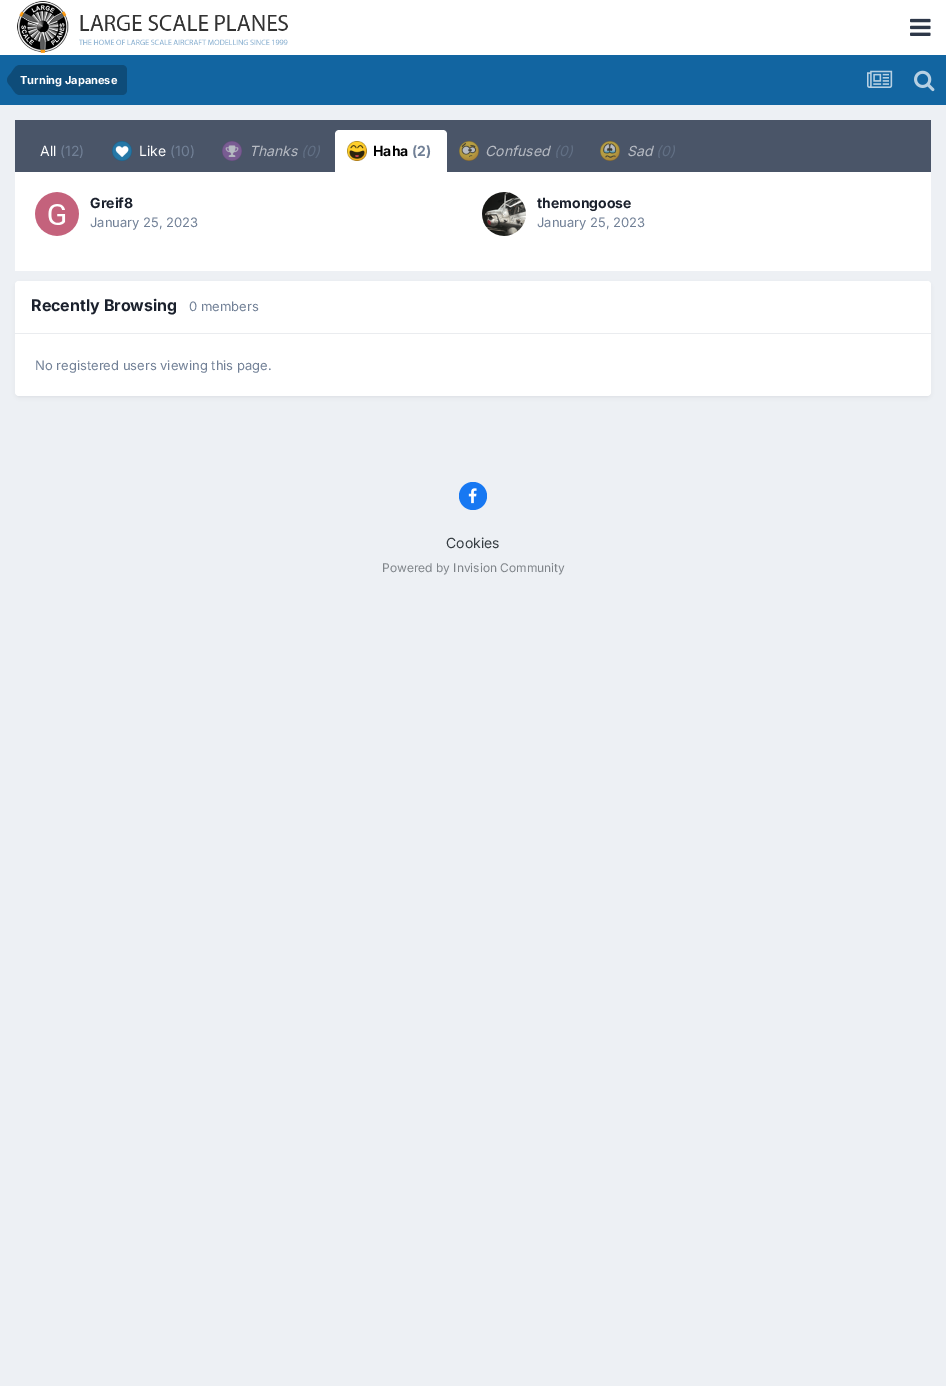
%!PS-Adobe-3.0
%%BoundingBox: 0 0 946 1386
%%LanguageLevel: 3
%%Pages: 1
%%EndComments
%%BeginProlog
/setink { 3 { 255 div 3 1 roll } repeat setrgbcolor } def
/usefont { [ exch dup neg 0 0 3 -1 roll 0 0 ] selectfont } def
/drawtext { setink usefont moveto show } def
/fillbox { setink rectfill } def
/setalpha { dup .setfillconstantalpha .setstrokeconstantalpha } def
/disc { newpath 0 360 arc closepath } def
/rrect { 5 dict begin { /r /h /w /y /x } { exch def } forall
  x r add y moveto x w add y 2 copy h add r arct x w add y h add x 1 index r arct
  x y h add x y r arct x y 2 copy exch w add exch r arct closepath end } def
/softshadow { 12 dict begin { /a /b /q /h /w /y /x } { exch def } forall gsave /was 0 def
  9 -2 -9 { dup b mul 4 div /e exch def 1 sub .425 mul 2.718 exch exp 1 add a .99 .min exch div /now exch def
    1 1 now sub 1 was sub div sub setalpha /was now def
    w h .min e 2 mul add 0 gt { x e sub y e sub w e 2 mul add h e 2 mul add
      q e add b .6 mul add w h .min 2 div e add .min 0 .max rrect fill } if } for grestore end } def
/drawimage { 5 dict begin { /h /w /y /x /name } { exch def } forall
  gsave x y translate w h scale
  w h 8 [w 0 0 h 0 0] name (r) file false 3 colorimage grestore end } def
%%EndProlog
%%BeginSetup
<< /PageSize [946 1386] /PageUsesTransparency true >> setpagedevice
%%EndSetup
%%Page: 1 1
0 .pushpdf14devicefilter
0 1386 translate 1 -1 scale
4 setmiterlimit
0 0 946 1386 237 240 244 fillbox
0 0 946 55 255 255 255 fillbox
(assets/img1.rgb) 17 1 271 52 drawimage
(assets/img2.rgb) 910 18 21 18 drawimage
0 55 946 50 18 101 161 fillbox
14 76 121 setink
20 65 moveto 122 65 lineto 125 65 127 67 127 70 curveto 127 90 lineto 127 93 125 95 122 95 curveto 20 95 lineto closepath fill
20 80 moveto 20 95 lineto 15.5 95 13.5 90.5 11 87 curveto 9.5 85 7 83 7 80 curveto closepath 20 80 moveto 7 80 lineto 7 77 9.5 75 11 73 curveto 13.5 69.5 15.5 65 20 65 curveto closepath fill
(Turning Japanese) 20 84 /Inter-Bold 11 255 255 255 drawtext
(assets/img3.rgb) 867 70 26 18 drawimage
(assets/img4.rgb) 914 70 21 22 drawimage
15 120 916 52 74 85 104 fillbox
(All) 40 156 /Inter-Regular 14 255 255 255 drawtext
(\(12\)) 60 156 /Inter-Regular 14 113 128 150 drawtext
(assets/img5.rgb) 112 141 20 20 drawimage
(Like) 139 156 /Inter-Regular 14 255 255 255 drawtext
(\(10\)) 170 156 /Inter-Regular 14 113 128 150 drawtext
(assets/img6.rgb) 222 141 20 20 drawimage
(Thanks) 249 156 /Inter-Italic 14 183 187 195 drawtext
(\(0\)) 301 156 /Inter-Italic 14 97 111 132 drawtext
255 255 255 setink
339 130 moveto 443 130 lineto 445 130 447 132 447 134 curveto 447 172 lineto 335 172 lineto 335 134 lineto 335 132 337 130 339 130 curveto closepath fill
(assets/img7.rgb) 347 141 20 20 drawimage
(Haha) 373 156 /Inter-Bold 14 0 0 0 drawtext
(\(2\)) 412 156 /Inter-Bold 14 113 128 150 drawtext
(assets/img8.rgb) 459 141 20 20 drawimage
(Confused) 485 156 /Inter-Italic 14 183 187 195 drawtext
(\(0\)) 554 156 /Inter-Italic 14 97 111 132 drawtext
(assets/img9.rgb) 600 141 20 20 drawimage
(Sad) 627 156 /Inter-Italic 14 183 187 195 drawtext
(\(0\)) 656 156 /Inter-Italic 14 97 111 132 drawtext
15 172 916 99 255 255 255 fillbox
(assets/img10.rgb) 35 192 44 44 drawimage
(Greif8) 90 208 /Inter-Bold 14 26 32 44 drawtext
(January 25, 2023) 90 227 /Inter-Regular 13 113 128 150 drawtext
(assets/img11.rgb) 482 192 44 44 drawimage
(themongoose) 537 208 /Inter-Bold 14 26 32 44 drawtext
(January 25, 2023) 537 227 /Inter-Regular 13 113 128 150 drawtext
45 55 72 setink
16 284 914 113 3 2 0.1 softshadow
255 255 255 setink
15 281 916 115 4 rrect fill
19 281 moveto 927 281 lineto 929 281 931 283 931 285 curveto 931 334 lineto 15 334 lineto 15 285 lineto 15 283 17 281 19 281 curveto closepath fill
15 333 916 1 234 236 239 fillbox
(Recently Browsing) 31 311 /Inter-Bold 16 26 32 44 drawtext
(0 members) 189 311 /Inter-Regular 13 113 128 150 drawtext
(No registered users viewing this page.) 35 370 /Inter-Regular 13 113 128 150 drawtext
23 120 242 setink
473 496 14 disc fill
(assets/img12.rgb) 468 488 9 16 drawimage
(Cookies) 446 548 /Inter-Regular 14 53 60 65 drawtext
(Powered by Invision Community) 382 572 /Inter-Regular 12 127 132 137 drawtext
.poppdf14devicefilter showpage
%%EOF
